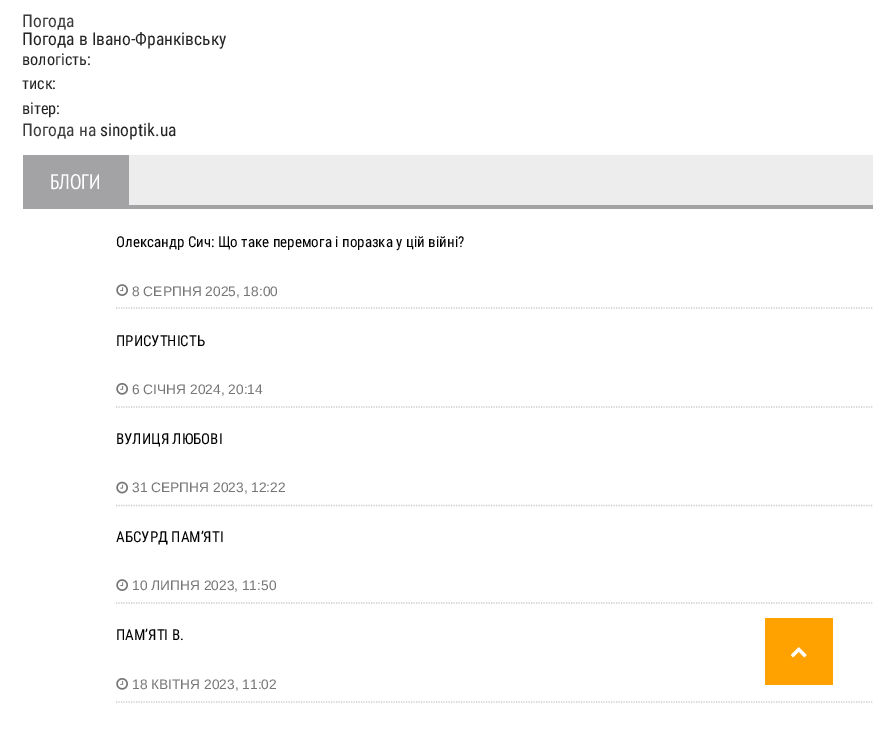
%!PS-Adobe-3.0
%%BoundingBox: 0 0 895 747
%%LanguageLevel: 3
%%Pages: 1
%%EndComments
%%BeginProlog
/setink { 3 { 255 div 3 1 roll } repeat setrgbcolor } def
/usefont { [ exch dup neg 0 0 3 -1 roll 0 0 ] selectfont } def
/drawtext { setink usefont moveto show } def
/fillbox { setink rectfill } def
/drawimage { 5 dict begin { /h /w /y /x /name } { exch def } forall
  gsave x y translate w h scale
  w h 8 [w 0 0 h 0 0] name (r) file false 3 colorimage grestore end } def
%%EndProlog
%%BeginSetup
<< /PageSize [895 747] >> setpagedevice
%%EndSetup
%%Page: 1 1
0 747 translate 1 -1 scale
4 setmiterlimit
0 0 895 747 255 255 255 fillbox
(Погода) 22 27 /RobotoCondensed-Regular 17.5 59 59 59 drawtext
(Погода в Івано-Франківську) 22 45 /RobotoCondensed-Regular 17.5 35 35 35 drawtext
(вологість:) 22 65 /RobotoCondensed-Regular 16.25 35 35 35 drawtext
(тиск:) 22 89 /RobotoCondensed-Regular 16.25 35 35 35 drawtext
(вітер:) 22 114 /RobotoCondensed-Regular 16.25 35 35 35 drawtext
(Погода на) 22 136 /RobotoCondensed-Regular 17.5 59 59 59 drawtext
(sinoptik.ua) 100 136 /RobotoCondensed-Regular 17.5 35 35 35 drawtext
129 155 744 50 237 237 237 fillbox
23 155 106 50 163 163 166 fillbox
(БЛОГИ) 50 189 /PTSansNarrow-Regular 21 255 255 255 drawtext
23 205 850 4 163 163 166 fillbox
204 204 204 setink
1.2 setlinewidth
[1.25 1.25] 0 setdash
116 308 moveto 872.5 308 lineto stroke
(Олександр Сич: Що таке перемога і поразка у цій війні?) 116 247 /RobotoCondensed-Regular 15 0 0 0 drawtext
(assets/img1.rgb) 116 284 12 12 drawimage
(8 СЕРПНЯ 2025, 18:00) 132 296 /LiberationSans-Regular 13.75 118 118 118 drawtext
204 204 204 setink
116 407 moveto 872.5 407 lineto stroke
(ПРИСУТНІСТЬ) 116 346 /RobotoCondensed-Regular 15 0 0 0 drawtext
(assets/img2.rgb) 116 383 12 12 drawimage
(6 СІЧНЯ 2024, 20:14) 132 394 /LiberationSans-Regular 13.75 118 118 118 drawtext
204 204 204 setink
116 505.5 moveto 872.5 505.5 lineto stroke
(ВУЛИЦЯ ЛЮБОВІ) 116 444 /RobotoCondensed-Regular 15 0 0 0 drawtext
(assets/img3.rgb) 116 481 12 13 drawimage
(31 СЕРПНЯ 2023, 12:22) 132 492 /LiberationSans-Regular 13.75 118 118 118 drawtext
204 204 204 setink
116 603 moveto 872.5 603 lineto stroke
(АБСУРД ПАМ’ЯТІ) 116 542 /RobotoCondensed-Regular 15 0 0 0 drawtext
(assets/img1.rgb) 116 579 12 12 drawimage
(10 ЛИПНЯ 2023, 11:50) 132 590 /LiberationSans-Regular 13.75 118 118 118 drawtext
204 204 204 setink
116 702 moveto 872.5 702 lineto stroke
(ПАМ’ЯТІ В.) 116 640 /RobotoCondensed-Regular 15 0 0 0 drawtext
(assets/img2.rgb) 116 678 12 12 drawimage
(18 КВІТНЯ 2023, 11:02) 132 689 /LiberationSans-Regular 13.75 118 118 118 drawtext
765 618 68 67 255 162 0 fillbox
(assets/img4.rgb) 790 647 17 11 drawimage
showpage
%%EOF
